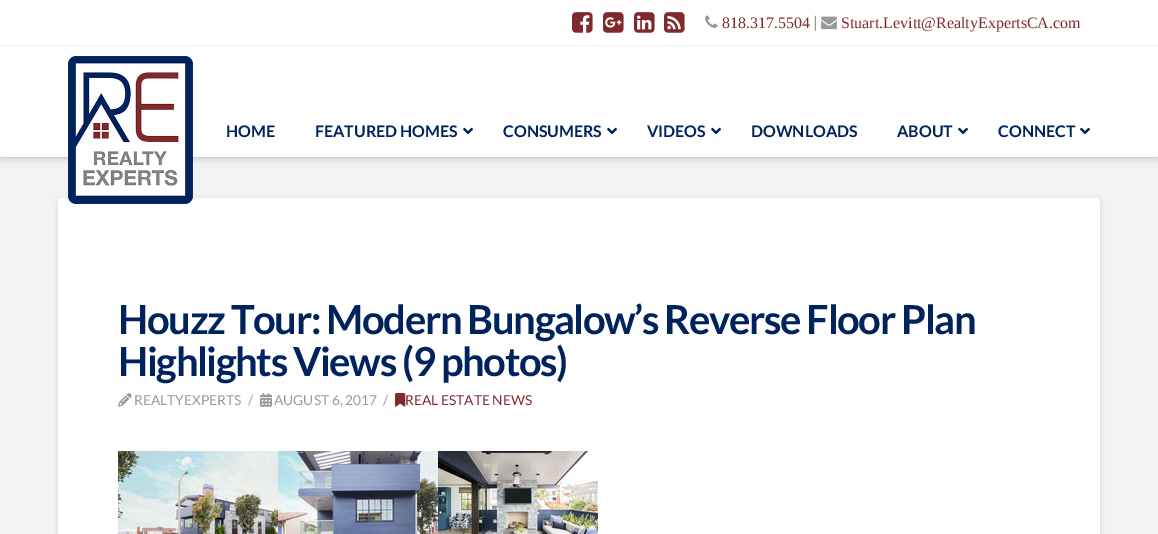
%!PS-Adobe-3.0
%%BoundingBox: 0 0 1158 534
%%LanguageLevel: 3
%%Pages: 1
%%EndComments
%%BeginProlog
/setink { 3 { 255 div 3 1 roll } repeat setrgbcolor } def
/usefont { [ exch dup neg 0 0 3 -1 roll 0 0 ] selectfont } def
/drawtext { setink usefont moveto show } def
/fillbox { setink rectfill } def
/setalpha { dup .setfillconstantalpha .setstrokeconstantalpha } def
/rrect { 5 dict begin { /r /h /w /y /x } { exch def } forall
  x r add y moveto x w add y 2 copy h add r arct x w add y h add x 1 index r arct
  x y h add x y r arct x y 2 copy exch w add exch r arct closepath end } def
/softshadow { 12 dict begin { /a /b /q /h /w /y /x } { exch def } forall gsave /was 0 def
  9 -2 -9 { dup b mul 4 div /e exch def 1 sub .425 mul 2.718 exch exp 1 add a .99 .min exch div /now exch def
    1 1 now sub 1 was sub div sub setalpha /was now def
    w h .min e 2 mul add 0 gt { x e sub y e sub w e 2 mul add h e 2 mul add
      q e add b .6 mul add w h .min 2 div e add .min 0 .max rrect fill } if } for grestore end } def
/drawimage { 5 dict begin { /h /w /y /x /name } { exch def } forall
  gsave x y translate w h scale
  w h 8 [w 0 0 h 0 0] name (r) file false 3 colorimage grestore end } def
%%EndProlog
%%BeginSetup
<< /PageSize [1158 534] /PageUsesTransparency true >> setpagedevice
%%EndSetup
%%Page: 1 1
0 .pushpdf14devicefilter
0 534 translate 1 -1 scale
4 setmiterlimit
0 0 1158 534 243 243 243 fillbox
0 0 0 setink
0 48 1158 112 0 3 0.13 softshadow
0 0 1158 45 255 255 255 fillbox
0 45 1158 1 242 242 242 fillbox
(assets/img1.rgb) 572 12 21 21 drawimage
(assets/img2.rgb) 603 12 21 21 drawimage
(assets/img3.rgb) 634 12 21 21 drawimage
(assets/img4.rgb) 664 12 21 21 drawimage
(assets/img5.rgb) 705 15 13 13 drawimage
(818.317.5504) 722 28 /LiberationSerif-Regular 16 127 42 46 drawtext
(|) 813 28 /Lato-Regular 16 153 153 153 drawtext
(assets/img6.rgb) 821 16 16 14 drawimage
(Stuart.Levitt@RealtyExpertsCA.com) 841 28 /LiberationSerif-Regular 16 127 42 46 drawtext
0 46 1158 111 255 255 255 fillbox
0 157 1158 1 204 204 204 fillbox
0 0 0 setink
58 200 1042 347 4 3 0.13 softshadow
255 255 255 setink
58 198 1042 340 4 rrect fill
(assets/img7.rgb) 68 56 125 148 drawimage
(HOME) 226 137 /Lato-Bold 16 0 35 93 drawtext
(FEATURED HOMES) 315 137 /Lato-Bold 16 0 35 93 drawtext
(assets/img8.rgb) 463 127 10 8 drawimage
(CONSUMERS) 503 137 /Lato-Bold 16 0 35 93 drawtext
(assets/img8.rgb) 607 127 10 8 drawimage
(VIDEOS) 647 137 /Lato-Bold 16 0 35 93 drawtext
(assets/img8.rgb) 711 127 10 8 drawimage
(DOWNLOADS) 751 137 /Lato-Bold 16 0 35 93 drawtext
(ABOUT) 897 137 /Lato-Bold 16 0 35 93 drawtext
(assets/img8.rgb) 958 127 10 8 drawimage
(CONNECT) 998 137 /Lato-Bold 16 0 35 93 drawtext
(assets/img8.rgb) 1080 127 10 8 drawimage
/Lato-Bold 40 usefont
118 334 moveto -1.4 0 (Houzz Tour: Modern Bungalow’s Reverse Floor Plan) ashow
118 376 moveto -1.4 0 (Highlights Views \(9 photos\)) ashow
(assets/img9.rgb) 118 393 14 14 drawimage
(REALTYEXPERTS) 134 405 /Lato-Regular 13.75 153 153 153 drawtext
(/) 248 405 /Lato-Regular 13.75 153 153 153 drawtext
(assets/img10.rgb) 260 393 12 14 drawimage
(AUGUST 6, 2017) 274 405 /Lato-Regular 13.75 153 153 153 drawtext
(/) 383 405 /Lato-Regular 13.75 153 153 153 drawtext
(assets/img11.rgb) 395 393 11 14 drawimage
(REAL ESTATE NEWS) 405 405 /Lato-Regular 13.75 127 42 46 drawtext
(assets/img12.rgb) 118 451 160 83 drawimage
(assets/img13.rgb) 278 451 160 83 drawimage
(assets/img14.rgb) 438 451 160 83 drawimage
.poppdf14devicefilter showpage
%%EOF
